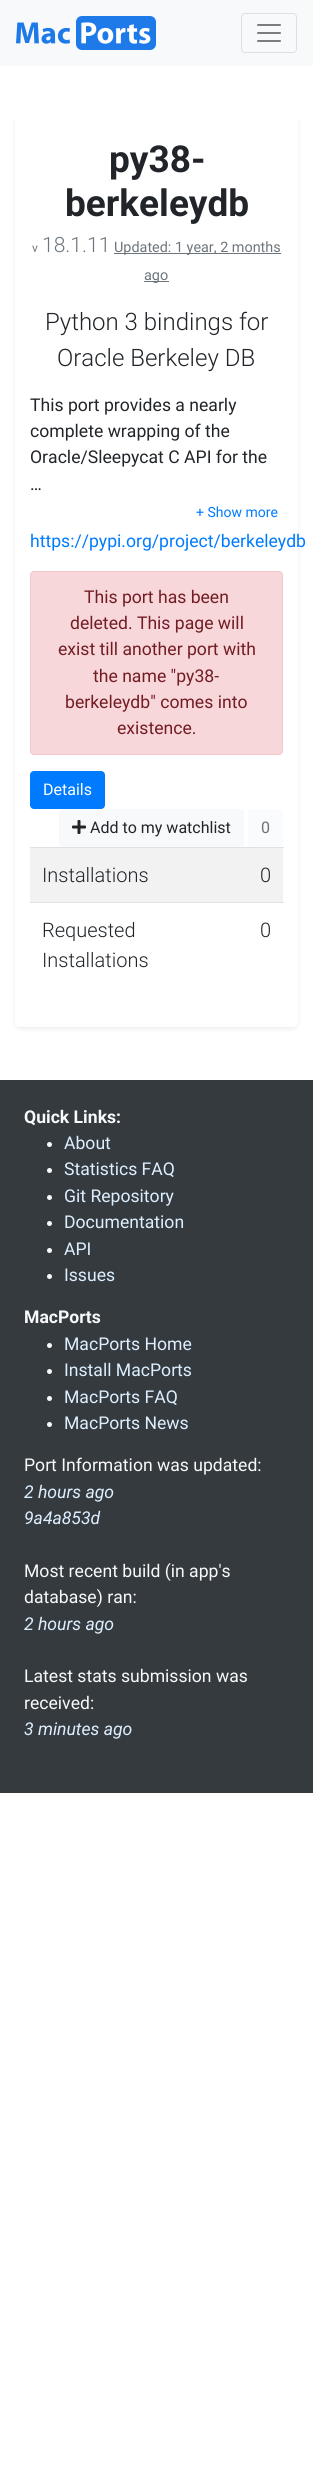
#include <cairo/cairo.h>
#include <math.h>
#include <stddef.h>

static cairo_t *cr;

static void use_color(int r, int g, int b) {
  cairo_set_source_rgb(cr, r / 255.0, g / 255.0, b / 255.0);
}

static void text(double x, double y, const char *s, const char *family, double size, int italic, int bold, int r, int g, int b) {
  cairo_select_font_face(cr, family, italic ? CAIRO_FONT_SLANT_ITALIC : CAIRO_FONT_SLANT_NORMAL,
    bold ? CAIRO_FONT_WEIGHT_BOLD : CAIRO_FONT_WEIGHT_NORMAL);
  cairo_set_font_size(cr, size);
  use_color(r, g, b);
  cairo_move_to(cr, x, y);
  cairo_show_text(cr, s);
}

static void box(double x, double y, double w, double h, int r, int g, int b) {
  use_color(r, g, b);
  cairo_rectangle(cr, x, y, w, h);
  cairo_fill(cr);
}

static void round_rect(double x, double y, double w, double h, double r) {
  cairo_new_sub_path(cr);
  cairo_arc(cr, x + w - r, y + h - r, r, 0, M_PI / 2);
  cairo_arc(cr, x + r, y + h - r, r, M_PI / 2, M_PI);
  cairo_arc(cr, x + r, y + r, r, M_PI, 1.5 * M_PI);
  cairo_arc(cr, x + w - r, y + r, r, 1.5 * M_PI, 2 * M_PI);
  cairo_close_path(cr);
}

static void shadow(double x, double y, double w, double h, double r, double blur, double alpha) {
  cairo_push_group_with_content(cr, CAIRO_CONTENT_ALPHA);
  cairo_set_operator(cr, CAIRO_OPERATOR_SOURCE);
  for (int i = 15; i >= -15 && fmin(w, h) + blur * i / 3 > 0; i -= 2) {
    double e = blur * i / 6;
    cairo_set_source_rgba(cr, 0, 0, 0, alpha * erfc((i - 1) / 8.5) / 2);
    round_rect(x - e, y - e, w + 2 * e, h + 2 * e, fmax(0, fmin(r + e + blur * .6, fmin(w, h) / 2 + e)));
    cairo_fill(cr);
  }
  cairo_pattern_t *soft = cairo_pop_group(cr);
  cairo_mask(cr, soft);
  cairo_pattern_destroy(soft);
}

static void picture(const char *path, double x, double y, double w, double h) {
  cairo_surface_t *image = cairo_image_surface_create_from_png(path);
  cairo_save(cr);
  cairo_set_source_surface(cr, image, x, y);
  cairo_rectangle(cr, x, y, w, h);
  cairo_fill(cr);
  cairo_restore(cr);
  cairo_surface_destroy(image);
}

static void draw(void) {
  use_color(255, 255, 255);
  cairo_paint(cr);
  box(0, 0, 313, 66, 248, 249, 250);
  picture("img_01.png", 16, 16, 140, 34);
  round_rect(241.5, 13.5, 55, 39, 3.5);
  use_color(223, 224, 225);
  cairo_set_line_width(cr, 1);
  cairo_stroke(cr);
  picture("img_02.png", 257, 24, 24, 18);
  cairo_save(cr);
  cairo_set_fill_rule(cr, CAIRO_FILL_RULE_EVEN_ODD);
  cairo_new_path(cr);
  cairo_move_to(cr, 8, 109);
  cairo_line_to(cr, 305, 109);
  cairo_line_to(cr, 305, 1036);
  cairo_line_to(cr, 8, 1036);
  cairo_close_path(cr);
  cairo_move_to(cr, 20, 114);
  cairo_line_to(cr, 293, 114);
  cairo_curve_to(cr, 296, 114, 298, 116, 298, 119);
  cairo_line_to(cr, 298, 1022);
  cairo_curve_to(cr, 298, 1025, 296, 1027, 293, 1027);
  cairo_line_to(cr, 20, 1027);
  cairo_curve_to(cr, 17, 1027, 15, 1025, 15, 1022);
  cairo_line_to(cr, 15, 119);
  cairo_curve_to(cr, 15, 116, 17, 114, 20, 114);
  cairo_close_path(cr);
  cairo_clip(cr);
  use_color(0, 0, 0);
  shadow(15, 116, 283, 913, 5, 2, 0.07);
  cairo_restore(cr);
  box(114, 253, 167, 1, 108, 117, 125);
  box(144, 281, 25, 1, 108, 117, 125);
  use_color(248, 215, 218);
  round_rect(30.5, 571.5, 252, 183, 3.5);
  cairo_fill_preserve(cr);
  use_color(245, 198, 203);
  cairo_stroke(cr);
  use_color(0, 123, 255);
  round_rect(30.5, 771.5, 74, 37, 3.5);
  cairo_fill_preserve(cr);
  cairo_stroke(cr);
  use_color(248, 249, 250);
  round_rect(59, 809, 185, 38, 4);
  cairo_fill(cr);
  picture("img_03.png", 72, 820, 14, 14);
  use_color(250, 251, 252);
  round_rect(248, 809, 35, 38, 4);
  cairo_fill(cr);
  box(30, 848, 253, 54, 242, 242, 242);
  box(30, 847, 254, 1, 222, 226, 230);
  box(30, 902, 254, 1, 222, 226, 230);
  box(0, 1080, 313, 713, 53, 58, 63);
  use_color(248, 249, 250);
  cairo_arc(cr, 49.5, 1144.5, 2.5, 0, 2 * M_PI);
  cairo_fill(cr);
  cairo_arc(cr, 49.5, 1170.5, 2.5, 0, 2 * M_PI);
  cairo_fill(cr);
  cairo_arc(cr, 49.5, 1197.5, 2.5, 0, 2 * M_PI);
  cairo_fill(cr);
  cairo_arc(cr, 49.5, 1223.5, 2.5, 0, 2 * M_PI);
  cairo_fill(cr);
  cairo_arc(cr, 49.5, 1250.5, 2.5, 0, 2 * M_PI);
  cairo_fill(cr);
  cairo_arc(cr, 49.5, 1276.5, 2.5, 0, 2 * M_PI);
  cairo_fill(cr);
  cairo_arc(cr, 49.5, 1345.5, 2.5, 0, 2 * M_PI);
  cairo_fill(cr);
  cairo_arc(cr, 49.5, 1371.5, 2.5, 0, 2 * M_PI);
  cairo_fill(cr);
  cairo_arc(cr, 49.5, 1398.5, 2.5, 0, 2 * M_PI);
  cairo_fill(cr);
  cairo_arc(cr, 49.5, 1424.5, 2.5, 0, 2 * M_PI);
  cairo_fill(cr);
  text(109, 172, "py38-", "Roboto", 37, 0, 1, 33, 37, 41);
  text(65, 216, "berkeleydb", "Roboto", 37, 0, 1, 33, 37, 41);
  text(32, 252, "v", "Roboto", 12, 0, 0, 108, 117, 125);
  text(42, 252, "18.1.11", "Roboto Light", 21, 0, 0, 108, 117, 125);
  text(114, 252, "Updated: 1 year, 2 months", "Roboto", 14.4, 0, 0, 108, 117, 125);
  text(144, 280, "ago", "Roboto", 14.4, 0, 0, 108, 117, 125);
  text(45, 330, "Python 3 bindings for", "Roboto Light", 24, 0, 0, 33, 37, 41);
  text(57, 366, "Oracle Berkeley DB", "Roboto Light", 24, 0, 0, 33, 37, 41);
  text(30, 411, "This port provides a nearly", "Roboto", 17.6, 0, 0, 33, 37, 41);
  text(30, 437, "complete wrapping of the", "Roboto", 17.6, 0, 0, 33, 37, 41);
  text(30, 463, "Oracle/Sleepycat C API for the", "Roboto", 17.6, 0, 0, 33, 37, 41);
  text(30, 490, "…", "Roboto", 17.6, 0, 0, 33, 37, 41);
  text(196, 517, "+ Show more", "Roboto", 14, 0, 0, 0, 123, 255);
  text(30, 547, "https://pypi.org/project/berkeleydb", "Roboto", 17.6, 0, 0, 0, 123, 255);
  text(84, 603, "This port has been", "Roboto", 17.6, 0, 0, 114, 28, 36);
  text(70, 629, "deleted. This page will", "Roboto", 17.6, 0, 0, 114, 28, 36);
  text(58, 655, "exist till another port with", "Roboto", 17.6, 0, 0, 114, 28, 36);
  text(93, 682, "the name \"py38-", "Roboto", 17.6, 0, 0, 114, 28, 36);
  text(65, 708, "berkeleydb\" comes into", "Roboto", 17.6, 0, 0, 114, 28, 36);
  text(117, 734, "existence.", "Roboto", 17.6, 0, 0, 114, 28, 36);
  text(43, 795, "Details", "Roboto", 16, 0, 0, 255, 255, 255);
  text(90, 833, "Add to my watchlist", "Roboto", 16, 0, 0, 33, 37, 41);
  text(261, 833, "0", "Roboto", 16, 0, 0, 111, 113, 116);
  text(42, 882, "Installations", "Roboto Light", 20, 0, 0, 33, 37, 41);
  text(260, 882, "0", "Roboto Light", 20, 0, 0, 33, 37, 41);
  text(42, 937, "Requested", "Roboto Light", 20, 0, 0, 33, 37, 41);
  text(42, 967, "Installations", "Roboto Light", 20, 0, 0, 33, 37, 41);
  text(260, 937, "0", "Roboto Light", 20, 0, 0, 33, 37, 41);
  text(24, 1123, "Quick Links:", "Roboto", 17.6, 0, 1, 248, 249, 250);
  text(64, 1149, "About", "Roboto", 17.6, 0, 0, 221, 239, 255);
  text(64, 1175, "Statistics FAQ", "Roboto", 17.6, 0, 0, 221, 239, 255);
  text(64, 1202, "Git Repository", "Roboto", 17.6, 0, 0, 221, 239, 255);
  text(64, 1228, "Documentation", "Roboto", 17.6, 0, 0, 221, 239, 255);
  text(64, 1255, "API", "Roboto", 17.6, 0, 0, 221, 239, 255);
  text(64, 1281, "Issues", "Roboto", 17.6, 0, 0, 221, 239, 255);
  text(24, 1323, "MacPorts", "Roboto", 17.6, 0, 1, 248, 249, 250);
  text(64, 1350, "MacPorts Home", "Roboto", 17.6, 0, 0, 221, 239, 255);
  text(64, 1376, "Install MacPorts", "Roboto", 17.6, 0, 0, 221, 239, 255);
  text(64, 1403, "MacPorts FAQ", "Roboto", 17.6, 0, 0, 221, 239, 255);
  text(64, 1429, "MacPorts News", "Roboto", 17.6, 0, 0, 221, 239, 255);
  text(24, 1471, "Port Information was updated:", "Roboto", 17.6, 0, 0, 248, 249, 250);
  text(24, 1498, "2 hours ago", "Roboto", 17.6, 1, 0, 221, 239, 255);
  text(24, 1524, "9a4a853d", "Roboto", 17.6, 1, 0, 221, 239, 255);
  text(24, 1577, "Most recent build (in app's", "Roboto", 17.6, 0, 0, 248, 249, 250);
  text(24, 1603, "database) ran:", "Roboto", 17.6, 0, 0, 248, 249, 250);
  text(24, 1630, "2 hours ago", "Roboto", 17.6, 1, 0, 221, 239, 255);
  text(24, 1682, "Latest stats submission was", "Roboto", 17.6, 0, 0, 248, 249, 250);
  text(24, 1709, "received:", "Roboto", 17.6, 0, 0, 248, 249, 250);
  text(24, 1735, "3 minutes ago", "Roboto", 17.6, 1, 0, 221, 239, 255);
}

int main(void) {
  cairo_surface_t *surface = cairo_image_surface_create(CAIRO_FORMAT_RGB24, 313, 2470);
  cr = cairo_create(surface);
  cairo_font_options_t *options = cairo_font_options_create();
  cairo_font_options_set_hint_metrics(options, CAIRO_HINT_METRICS_OFF);
  cairo_font_options_set_hint_style(options, CAIRO_HINT_STYLE_NONE);
  cairo_set_font_options(cr, options);
  cairo_set_miter_limit(cr, 4);
  draw();
  cairo_surface_write_to_png(surface, "out.png");
  cairo_font_options_destroy(options);
  cairo_destroy(cr);
  cairo_surface_destroy(surface);
  return 0;
}
